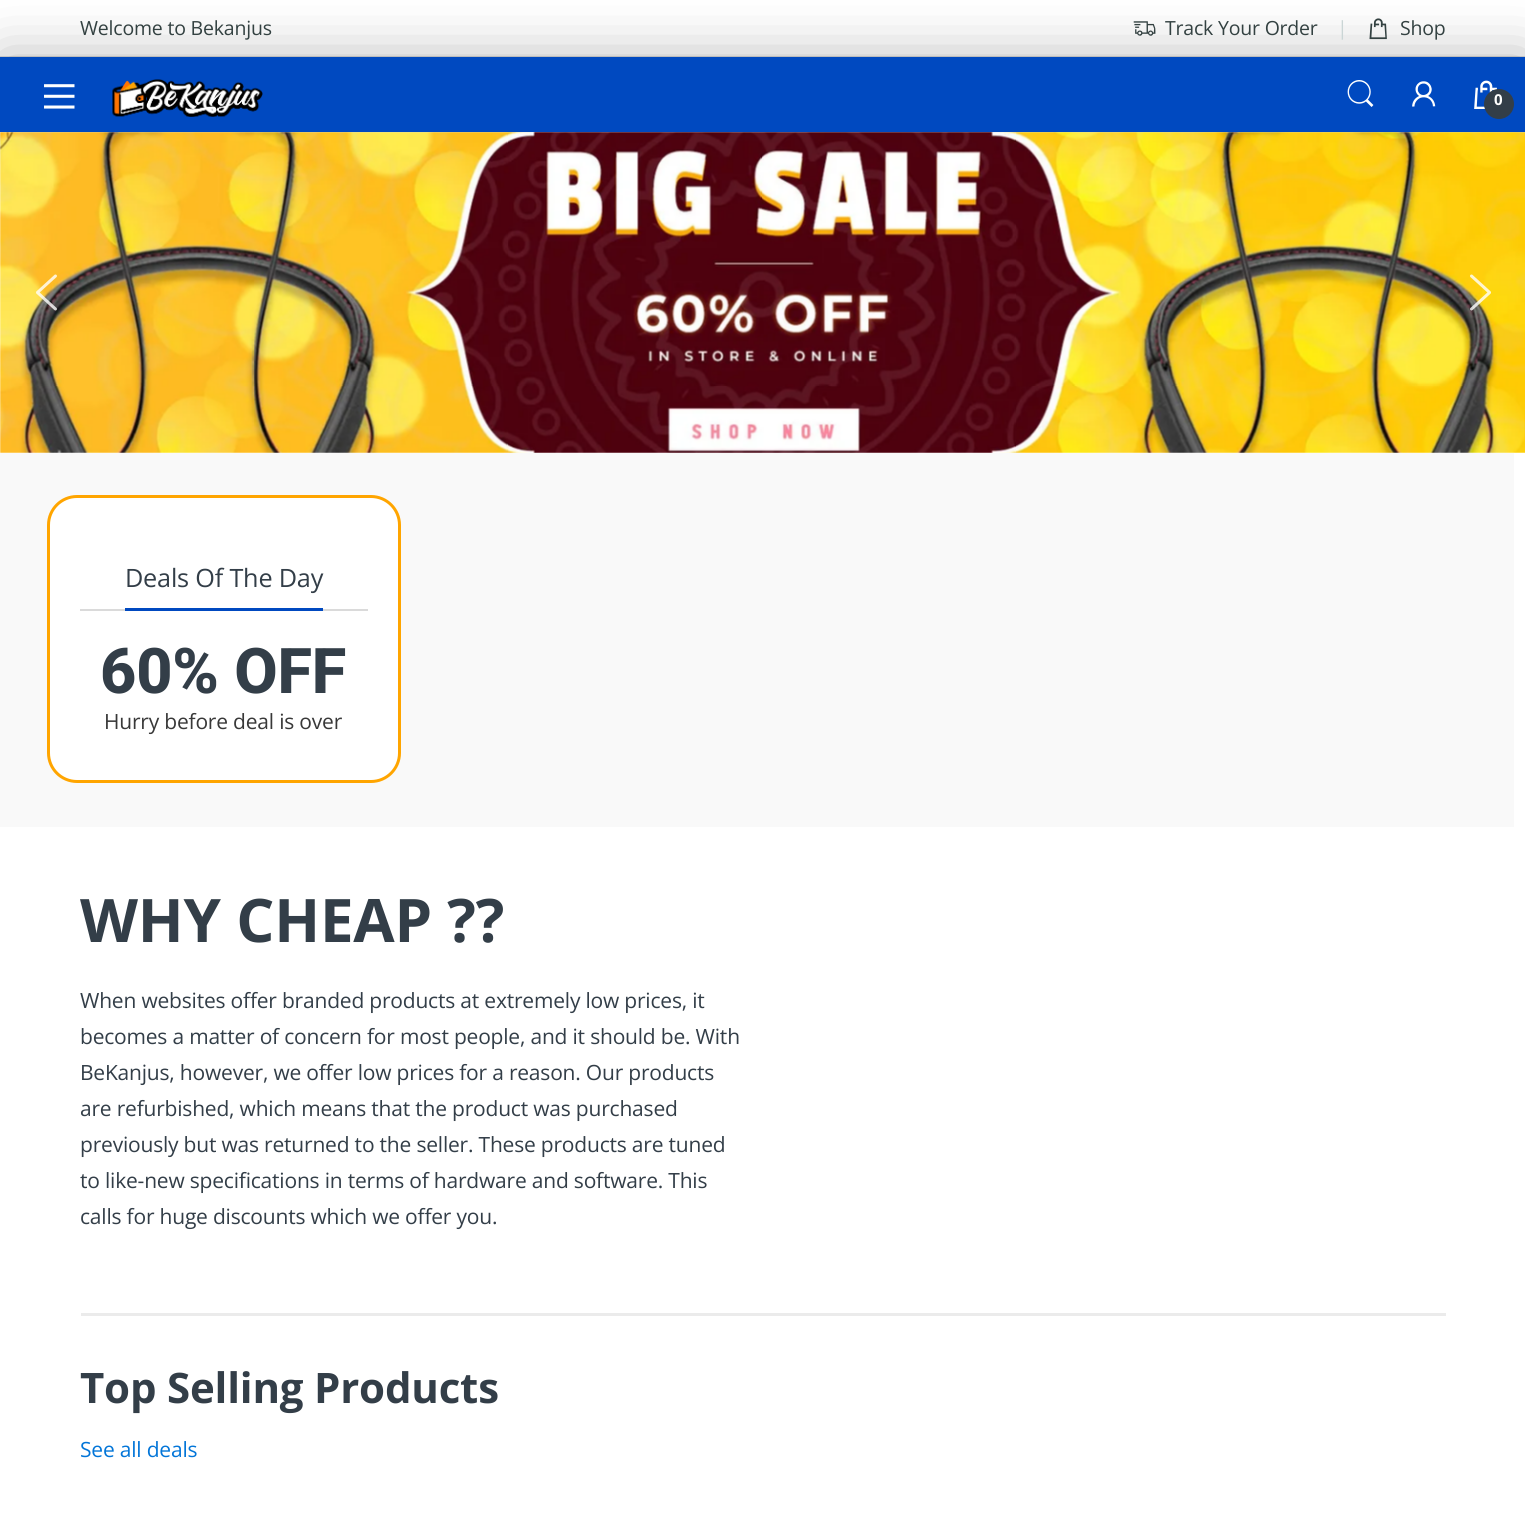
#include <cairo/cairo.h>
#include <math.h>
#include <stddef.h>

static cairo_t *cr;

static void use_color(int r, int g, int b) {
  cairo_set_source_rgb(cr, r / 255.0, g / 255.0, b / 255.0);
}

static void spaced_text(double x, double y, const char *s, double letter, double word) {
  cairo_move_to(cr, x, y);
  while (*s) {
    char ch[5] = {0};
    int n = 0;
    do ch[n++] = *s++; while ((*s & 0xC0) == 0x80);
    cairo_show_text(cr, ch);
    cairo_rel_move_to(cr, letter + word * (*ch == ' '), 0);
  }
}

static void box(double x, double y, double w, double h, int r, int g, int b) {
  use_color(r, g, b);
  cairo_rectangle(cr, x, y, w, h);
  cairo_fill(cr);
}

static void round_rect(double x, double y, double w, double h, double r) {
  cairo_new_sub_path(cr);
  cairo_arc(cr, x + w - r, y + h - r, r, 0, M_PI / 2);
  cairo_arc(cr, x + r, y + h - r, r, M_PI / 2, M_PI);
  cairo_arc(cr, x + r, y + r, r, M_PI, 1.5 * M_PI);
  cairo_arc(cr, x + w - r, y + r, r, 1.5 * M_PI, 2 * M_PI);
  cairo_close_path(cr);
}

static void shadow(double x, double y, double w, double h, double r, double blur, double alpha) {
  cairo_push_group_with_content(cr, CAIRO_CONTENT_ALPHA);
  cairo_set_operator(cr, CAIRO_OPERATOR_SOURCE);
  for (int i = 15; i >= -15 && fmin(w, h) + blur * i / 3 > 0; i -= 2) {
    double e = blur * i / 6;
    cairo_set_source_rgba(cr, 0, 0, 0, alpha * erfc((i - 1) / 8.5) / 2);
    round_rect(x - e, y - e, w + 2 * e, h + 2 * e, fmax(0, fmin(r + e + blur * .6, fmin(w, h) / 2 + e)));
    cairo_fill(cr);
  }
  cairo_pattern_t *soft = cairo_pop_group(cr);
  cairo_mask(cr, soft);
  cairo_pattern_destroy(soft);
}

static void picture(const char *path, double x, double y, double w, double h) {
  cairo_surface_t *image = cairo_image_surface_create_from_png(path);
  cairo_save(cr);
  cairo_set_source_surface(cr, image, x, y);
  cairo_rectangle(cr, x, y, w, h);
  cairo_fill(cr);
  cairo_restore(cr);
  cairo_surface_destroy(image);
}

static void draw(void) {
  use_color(255, 255, 255);
  cairo_paint(cr);
  box(0, 56, 1525, 1, 221, 221, 221);
  use_color(0, 0, 0);
  shadow(2, 59, 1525, 75, 0, 29, 0.3);
  picture("img_01.png", 1133, 21, 23, 15);
  picture("img_02.png", 1369, 18, 18, 22);
  box(0, 57, 1525, 75, 0, 73, 192);
  picture("img_03.png", 44, 84, 31, 25);
  picture("img_04.png", 112, 79, 151, 38);
  picture("img_05.png", 1347, 80, 27, 27);
  picture("img_06.png", 1412, 81, 24, 26);
  picture("img_07.png", 1474, 80, 23, 29);
  use_color(51, 62, 72);
  cairo_arc(cr, 1499, 104, 15, 0, 2 * M_PI);
  cairo_fill(cr);
  picture("img_08.png", 0, 132, 1525, 321);
  picture("img_09.png", 36, 274, 21, 37);
  picture("img_10.png", 1470, 274, 21, 37);
  box(0, 453, 1514, 374, 249, 249, 249);
  use_color(255, 255, 255);
  round_rect(48.5, 496.5, 351, 285, 28.5);
  cairo_fill_preserve(cr);
  use_color(255, 165, 0);
  cairo_set_line_width(cr, 3);
  cairo_stroke(cr);
  box(80, 609, 288, 2, 218, 218, 218);
  box(125, 608, 198, 3, 0, 73, 192);
  box(81, 1313, 1365, 3, 235, 235, 235);
  cairo_select_font_face(cr, "Open Sans", CAIRO_FONT_SLANT_NORMAL, CAIRO_FONT_WEIGHT_NORMAL);
  cairo_set_font_size(cr, 19.5);
  use_color(51, 65, 65);
  spaced_text(80, 35, "Welcome to Bekanjus", -0.2, 0);
  spaced_text(1165, 35, "Track Your Order", -0.2, 0);
  use_color(202, 213, 213);
  spaced_text(1337, 35, "|", -0.2, 0);
  use_color(51, 65, 65);
  spaced_text(1400, 35, "Shop", -0.2, 0);
  cairo_select_font_face(cr, "Open Sans", CAIRO_FONT_SLANT_NORMAL, CAIRO_FONT_WEIGHT_BOLD);
  cairo_set_font_size(cr, 15);
  use_color(255, 255, 255);
  spaced_text(1494, 105, "0", -0.2, 0);
  cairo_select_font_face(cr, "Open Sans", CAIRO_FONT_SLANT_NORMAL, CAIRO_FONT_WEIGHT_NORMAL);
  cairo_set_font_size(cr, 25.25);
  use_color(51, 62, 72);
  spaced_text(125, 587, "Deals Of The Day", -0.2, 0);
  cairo_select_font_face(cr, "Roboto ExtraBold", CAIRO_FONT_SLANT_NORMAL, CAIRO_FONT_WEIGHT_NORMAL);
  cairo_set_font_size(cr, 63);
  spaced_text(100, 693, "60% OFF", -0.2, 0);
  cairo_select_font_face(cr, "Open Sans", CAIRO_FONT_SLANT_NORMAL, CAIRO_FONT_WEIGHT_NORMAL);
  cairo_set_font_size(cr, 21);
  use_color(56, 56, 56);
  spaced_text(104, 729, "Hurry before deal is over", -0.2, 0);
  cairo_select_font_face(cr, "Open Sans", CAIRO_FONT_SLANT_NORMAL, CAIRO_FONT_WEIGHT_BOLD);
  cairo_set_font_size(cr, 60);
  use_color(51, 62, 72);
  spaced_text(80, 942, "WHY CHEAP ?\077", -0.2, 0);
  cairo_select_font_face(cr, "Open Sans", CAIRO_FONT_SLANT_NORMAL, CAIRO_FONT_WEIGHT_NORMAL);
  cairo_set_font_size(cr, 21);
  spaced_text(80, 1008, "When websites offer branded products at extremely low prices, it", -0.2, 0);
  spaced_text(80, 1044, "becomes a matter of concern for most people, and it should be. With", -0.2, 0);
  spaced_text(80, 1080, "BeKanjus, however, we offer low prices for a reason. Our products", -0.2, 0);
  spaced_text(80, 1116, "are refurbished, which means that the product was purchased", -0.2, 0);
  spaced_text(80, 1152, "previously but was returned to the seller. These products are tuned", -0.2, 0);
  spaced_text(80, 1188, "to like-new specifications in terms of hardware and software. This", -0.2, 0);
  spaced_text(80, 1224, "calls for huge discounts which we offer you.", -0.2, 0);
  cairo_select_font_face(cr, "Open Sans", CAIRO_FONT_SLANT_NORMAL, CAIRO_FONT_WEIGHT_BOLD);
  cairo_set_font_size(cr, 42);
  spaced_text(80, 1403, "Top Selling Products", -0.2, 0);
  cairo_select_font_face(cr, "Open Sans", CAIRO_FONT_SLANT_NORMAL, CAIRO_FONT_WEIGHT_NORMAL);
  cairo_set_font_size(cr, 21);
  use_color(2, 117, 216);
  spaced_text(80, 1457, "See all deals", -0.2, 0);
}

int main(void) {
  cairo_surface_t *surface = cairo_image_surface_create(CAIRO_FORMAT_RGB24, 1525, 1515);
  cr = cairo_create(surface);
  cairo_font_options_t *options = cairo_font_options_create();
  cairo_font_options_set_hint_metrics(options, CAIRO_HINT_METRICS_OFF);
  cairo_font_options_set_hint_style(options, CAIRO_HINT_STYLE_NONE);
  cairo_set_font_options(cr, options);
  cairo_set_miter_limit(cr, 4);
  draw();
  cairo_surface_write_to_png(surface, "out.png");
  cairo_font_options_destroy(options);
  cairo_destroy(cr);
  cairo_surface_destroy(surface);
  return 0;
}
